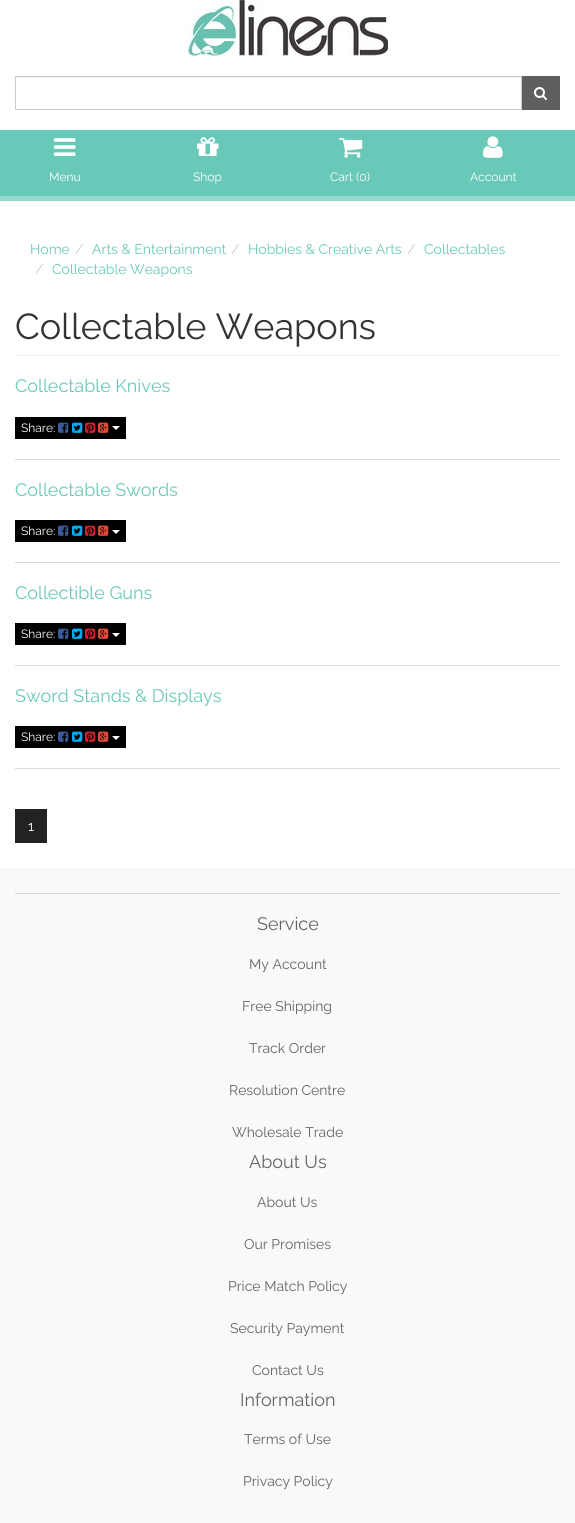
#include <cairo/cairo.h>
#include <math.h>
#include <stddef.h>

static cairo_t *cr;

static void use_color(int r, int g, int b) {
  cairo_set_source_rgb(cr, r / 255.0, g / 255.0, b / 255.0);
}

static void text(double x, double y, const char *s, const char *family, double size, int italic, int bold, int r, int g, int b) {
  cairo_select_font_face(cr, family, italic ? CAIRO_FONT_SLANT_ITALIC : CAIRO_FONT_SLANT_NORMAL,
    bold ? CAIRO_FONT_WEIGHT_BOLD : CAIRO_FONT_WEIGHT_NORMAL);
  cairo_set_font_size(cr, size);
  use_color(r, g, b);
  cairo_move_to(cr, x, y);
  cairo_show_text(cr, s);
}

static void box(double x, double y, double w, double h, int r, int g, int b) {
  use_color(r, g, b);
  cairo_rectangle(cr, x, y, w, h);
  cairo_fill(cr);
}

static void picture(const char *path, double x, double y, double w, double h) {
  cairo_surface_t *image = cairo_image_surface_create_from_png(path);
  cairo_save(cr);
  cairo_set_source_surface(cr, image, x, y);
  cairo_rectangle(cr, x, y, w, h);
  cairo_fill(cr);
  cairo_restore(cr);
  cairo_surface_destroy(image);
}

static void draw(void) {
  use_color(249, 249, 249);
  cairo_paint(cr);
  box(0, 0, 575, 130, 255, 255, 255);
  picture("img_01.png", 188, 0, 200, 56);
  box(16, 77, 505, 1, 236, 236, 236);
  cairo_rectangle(cr, 15.5, 76.5, 506, 33);
  use_color(204, 204, 204);
  cairo_set_line_width(cr, 1);
  cairo_stroke(cr);
  box(522, 76, 38, 34, 96, 95, 95);
  picture("img_02.png", 534, 87, 13, 13);
  box(0, 130, 575, 66, 105, 201, 185);
  box(0, 196, 575, 5, 150, 217, 206);
  picture("img_03.png", 54, 138, 22, 18);
  picture("img_04.png", 197, 137, 22, 19);
  picture("img_05.png", 339, 138, 24, 20);
  picture("img_06.png", 483, 136, 20, 22);
  box(0, 201, 575, 667, 255, 255, 255);
  box(15, 355, 545, 1, 238, 238, 238);
  box(15, 417, 111, 22, 0, 0, 0);
  picture("img_07.png", 58, 422, 11, 11);
  picture("img_08.png", 72, 422, 11, 11);
  picture("img_09.png", 85, 422, 11, 11);
  picture("img_10.png", 98, 422, 11, 11);
  use_color(255, 255, 255);
  cairo_new_path(cr);
  cairo_move_to(cr, 112, 426);
  cairo_line_to(cr, 120, 426);
  cairo_line_to(cr, 116, 430);
  cairo_close_path(cr);
  cairo_fill(cr);
  box(15, 459, 545, 1, 217, 217, 217);
  box(15, 520, 111, 22, 0, 0, 0);
  picture("img_07.png", 58, 525, 11, 11);
  picture("img_08.png", 72, 525, 11, 11);
  picture("img_09.png", 85, 525, 11, 11);
  picture("img_10.png", 98, 525, 11, 11);
  use_color(255, 255, 255);
  cairo_new_path(cr);
  cairo_move_to(cr, 112, 530);
  cairo_line_to(cr, 120, 530);
  cairo_line_to(cr, 116, 534);
  cairo_close_path(cr);
  cairo_fill(cr);
  box(15, 562, 545, 1, 217, 217, 217);
  box(15, 623, 111, 22, 0, 0, 0);
  picture("img_07.png", 58, 628, 11, 11);
  picture("img_08.png", 72, 628, 11, 11);
  picture("img_09.png", 85, 628, 11, 11);
  picture("img_10.png", 98, 628, 11, 11);
  use_color(255, 255, 255);
  cairo_new_path(cr);
  cairo_move_to(cr, 112, 633);
  cairo_line_to(cr, 120, 633);
  cairo_line_to(cr, 116, 637);
  cairo_close_path(cr);
  cairo_fill(cr);
  box(15, 665, 545, 1, 217, 217, 217);
  box(15, 726, 111, 22, 0, 0, 0);
  picture("img_07.png", 58, 731, 11, 11);
  picture("img_08.png", 72, 731, 11, 11);
  picture("img_09.png", 85, 731, 11, 11);
  picture("img_10.png", 98, 731, 11, 11);
  use_color(255, 255, 255);
  cairo_new_path(cr);
  cairo_move_to(cr, 112, 736);
  cairo_line_to(cr, 120, 736);
  cairo_line_to(cr, 116, 740);
  cairo_close_path(cr);
  cairo_fill(cr);
  box(15, 768, 545, 1, 217, 217, 217);
  box(15, 809, 32, 34, 34, 34, 34);
  box(15, 893, 545, 1, 212, 212, 212);
  text(49, 181, "Menu", "Raleway", 12, 0, 0, 255, 255, 255);
  text(193, 181, "Shop", "Raleway", 12, 0, 0, 255, 255, 255);
  text(330, 181, "Cart (0)", "Raleway", 12, 0, 0, 255, 255, 255);
  text(470, 181, "Account", "Raleway", 12, 0, 0, 255, 255, 255);
  text(30, 254, "Home", "Raleway", 14, 0, 0, 105, 201, 185);
  text(75, 254, "/", "Raleway", 14, 0, 0, 204, 204, 204);
  text(92, 254, "Arts & Entertainment", "Raleway", 14, 0, 0, 105, 201, 185);
  text(231, 254, "/", "Raleway", 14, 0, 0, 204, 204, 204);
  text(248, 254, "Hobbies & Creative Arts", "Raleway", 14, 0, 0, 105, 201, 185);
  text(407, 254, "/", "Raleway", 14, 0, 0, 204, 204, 204);
  text(424, 254, "Collectables", "Raleway", 14, 0, 0, 105, 201, 185);
  text(35, 274, "/", "Raleway", 14, 0, 0, 204, 204, 204);
  text(52, 274, "Collectable Weapons", "Raleway", 14, 0, 0, 105, 201, 185);
  text(15, 339, "Collectable Weapons", "Raleway", 36, 0, 0, 51, 51, 51);
  text(15, 392, "Collectable Knives", "Raleway", 18, 0, 0, 105, 201, 185);
  text(21, 432, "Share:", "Raleway", 12, 0, 0, 255, 255, 255);
  text(15, 496, "Collectable Swords", "Raleway", 18, 0, 0, 105, 201, 185);
  text(21, 535, "Share:", "Raleway", 12, 0, 0, 255, 255, 255);
  text(15, 599, "Collectible Guns", "Raleway", 18, 0, 0, 105, 201, 185);
  text(21, 638, "Share:", "Raleway", 12, 0, 0, 255, 255, 255);
  text(15, 702, "Sword Stands & Displays", "Raleway", 18, 0, 0, 105, 201, 185);
  text(21, 741, "Share:", "Raleway", 12, 0, 0, 255, 255, 255);
  text(28, 831, "1", "Raleway", 14, 0, 0, 255, 255, 255);
  text(257, 930, "Service", "Raleway", 18, 0, 0, 99, 100, 103);
  text(249, 969, "My Account", "Raleway", 14, 0, 0, 99, 100, 103);
  text(242, 1011, "Free Shipping", "Raleway", 14, 0, 0, 99, 100, 103);
  text(249, 1053, "Track Order", "Raleway", 14, 0, 0, 99, 100, 103);
  text(229, 1095, "Resolution Centre", "Raleway", 14, 0, 0, 99, 100, 103);
  text(232, 1137, "Wholesale Trade", "Raleway", 14, 0, 0, 99, 100, 103);
  text(249, 1168, "About Us", "Raleway", 18, 0, 0, 99, 100, 103);
  text(257, 1207, "About Us", "Raleway", 14, 0, 0, 99, 100, 103);
  text(244, 1249, "Our Promises", "Raleway", 14, 0, 0, 99, 100, 103);
  text(228, 1291, "Price Match Policy", "Raleway", 14, 0, 0, 99, 100, 103);
  text(230, 1333, "Security Payment", "Raleway", 14, 0, 0, 99, 100, 103);
  text(252, 1375, "Contact Us", "Raleway", 14, 0, 0, 99, 100, 103);
  text(240, 1406, "Information", "Raleway", 18, 0, 0, 99, 100, 103);
  text(244, 1444, "Terms of Use", "Raleway", 14, 0, 0, 99, 100, 103);
  text(243, 1486, "Privacy Policy", "Raleway", 14, 0, 0, 99, 100, 103);
}

int main(void) {
  cairo_surface_t *surface = cairo_image_surface_create(CAIRO_FORMAT_RGB24, 575, 1523);
  cr = cairo_create(surface);
  cairo_font_options_t *options = cairo_font_options_create();
  cairo_font_options_set_hint_metrics(options, CAIRO_HINT_METRICS_OFF);
  cairo_font_options_set_hint_style(options, CAIRO_HINT_STYLE_NONE);
  cairo_set_font_options(cr, options);
  cairo_set_miter_limit(cr, 4);
  draw();
  cairo_surface_write_to_png(surface, "out.png");
  cairo_font_options_destroy(options);
  cairo_destroy(cr);
  cairo_surface_destroy(surface);
  return 0;
}
